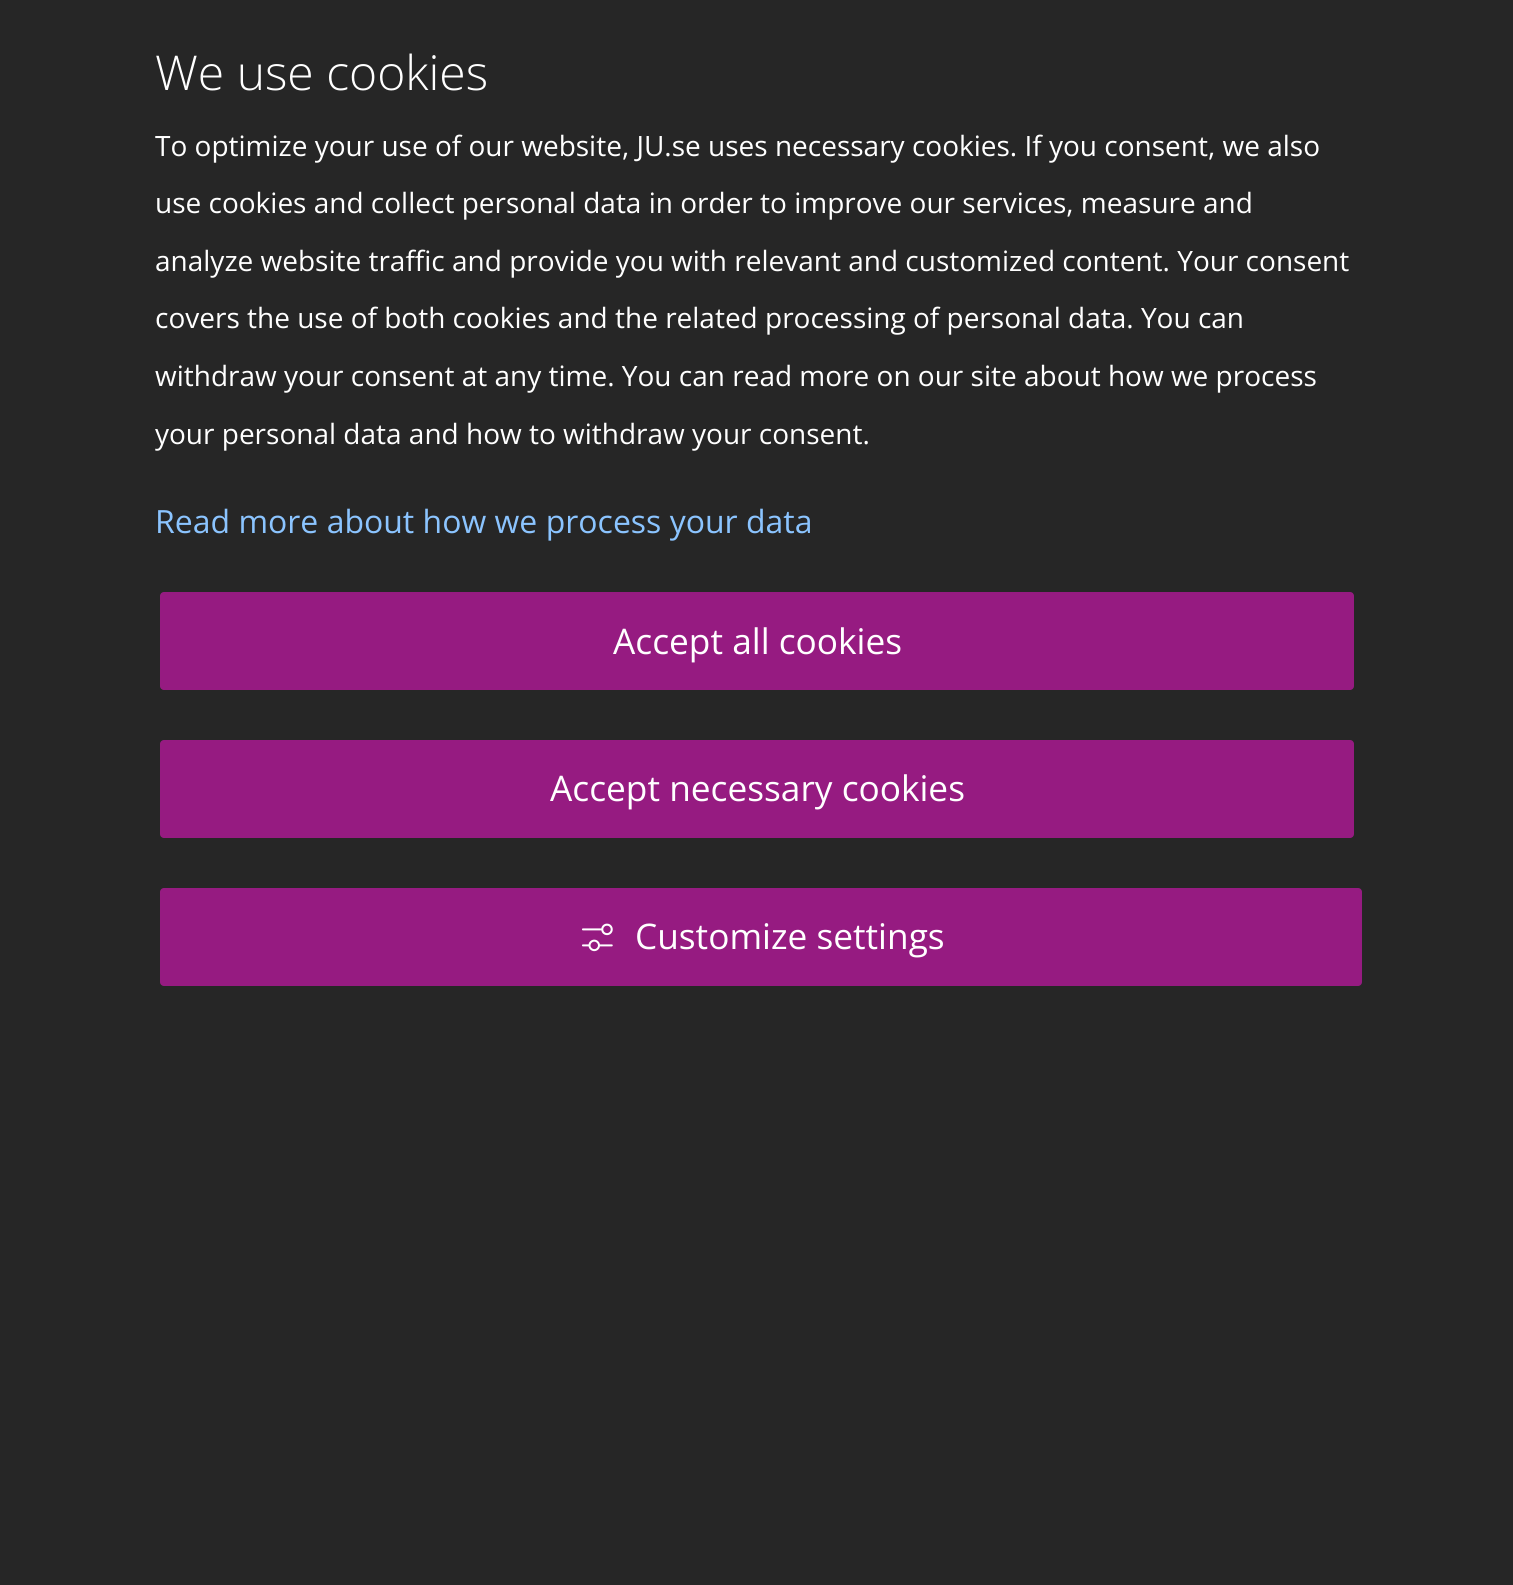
#include <cairo/cairo.h>
#include <math.h>
#include <stddef.h>

static cairo_t *cr;

static void use_color(int r, int g, int b) {
  cairo_set_source_rgb(cr, r / 255.0, g / 255.0, b / 255.0);
}

static void text(double x, double y, const char *s, const char *family, double size, int italic, int bold, int r, int g, int b) {
  cairo_select_font_face(cr, family, italic ? CAIRO_FONT_SLANT_ITALIC : CAIRO_FONT_SLANT_NORMAL,
    bold ? CAIRO_FONT_WEIGHT_BOLD : CAIRO_FONT_WEIGHT_NORMAL);
  cairo_set_font_size(cr, size);
  use_color(r, g, b);
  cairo_move_to(cr, x, y);
  cairo_show_text(cr, s);
}

static void round_rect(double x, double y, double w, double h, double r) {
  cairo_new_sub_path(cr);
  cairo_arc(cr, x + w - r, y + h - r, r, 0, M_PI / 2);
  cairo_arc(cr, x + r, y + h - r, r, M_PI / 2, M_PI);
  cairo_arc(cr, x + r, y + r, r, M_PI, 1.5 * M_PI);
  cairo_arc(cr, x + w - r, y + r, r, 1.5 * M_PI, 2 * M_PI);
  cairo_close_path(cr);
}

static void picture(const char *path, double x, double y, double w, double h) {
  cairo_surface_t *image = cairo_image_surface_create_from_png(path);
  cairo_save(cr);
  cairo_set_source_surface(cr, image, x, y);
  cairo_rectangle(cr, x, y, w, h);
  cairo_fill(cr);
  cairo_restore(cr);
  cairo_surface_destroy(image);
}

static void draw(void) {
  use_color(38, 38, 38);
  cairo_paint(cr);
  use_color(150, 27, 129);
  round_rect(160, 592, 1194, 98, 4);
  cairo_fill(cr);
  round_rect(160, 740, 1194, 98, 4);
  cairo_fill(cr);
  round_rect(160, 888, 1202, 98, 4);
  cairo_fill(cr);
  picture("img_01.png", 582, 923, 31, 29);
  text(155, 90, "We use cookies", "Open Sans Light", 48, 0, 0, 255, 255, 255);
  text(155, 156, "To optimize your use of our website, JU.se uses necessary cookies. If you consent, we also", "Open Sans", 28, 0, 0, 255, 255, 255);
  text(155, 213, "use cookies and collect personal data in order to improve our services, measure and", "Open Sans", 28, 0, 0, 255, 255, 255);
  text(155, 271, "analyze website traffic and provide you with relevant and customized content. Your consent", "Open Sans", 28, 0, 0, 255, 255, 255);
  text(155, 328, "covers the use of both cookies and the related processing of personal data. You can", "Open Sans", 28, 0, 0, 255, 255, 255);
  text(155, 386, "withdraw your consent at any time. You can read more on our site about how we process", "Open Sans", 28, 0, 0, 255, 255, 255);
  text(155, 444, "your personal data and how to withdraw your consent.", "Open Sans", 28, 0, 0, 255, 255, 255);
  text(155, 533, "Read more about how we process your data", "Open Sans", 32, 0, 0, 139, 196, 255);
  text(613, 654, "Accept all cookies", "Open Sans", 35.25, 0, 0, 255, 255, 255);
  text(550, 801, "Accept necessary cookies", "Open Sans", 35.25, 0, 0, 255, 255, 255);
  text(635, 949, "Customize settings", "Open Sans", 35.25, 0, 0, 255, 255, 255);
}

int main(void) {
  cairo_surface_t *surface = cairo_image_surface_create(CAIRO_FORMAT_RGB24, 1513, 1585);
  cr = cairo_create(surface);
  cairo_font_options_t *options = cairo_font_options_create();
  cairo_font_options_set_hint_metrics(options, CAIRO_HINT_METRICS_OFF);
  cairo_font_options_set_hint_style(options, CAIRO_HINT_STYLE_NONE);
  cairo_set_font_options(cr, options);
  cairo_set_miter_limit(cr, 4);
  draw();
  cairo_surface_write_to_png(surface, "out.png");
  cairo_font_options_destroy(options);
  cairo_destroy(cr);
  cairo_surface_destroy(surface);
  return 0;
}
